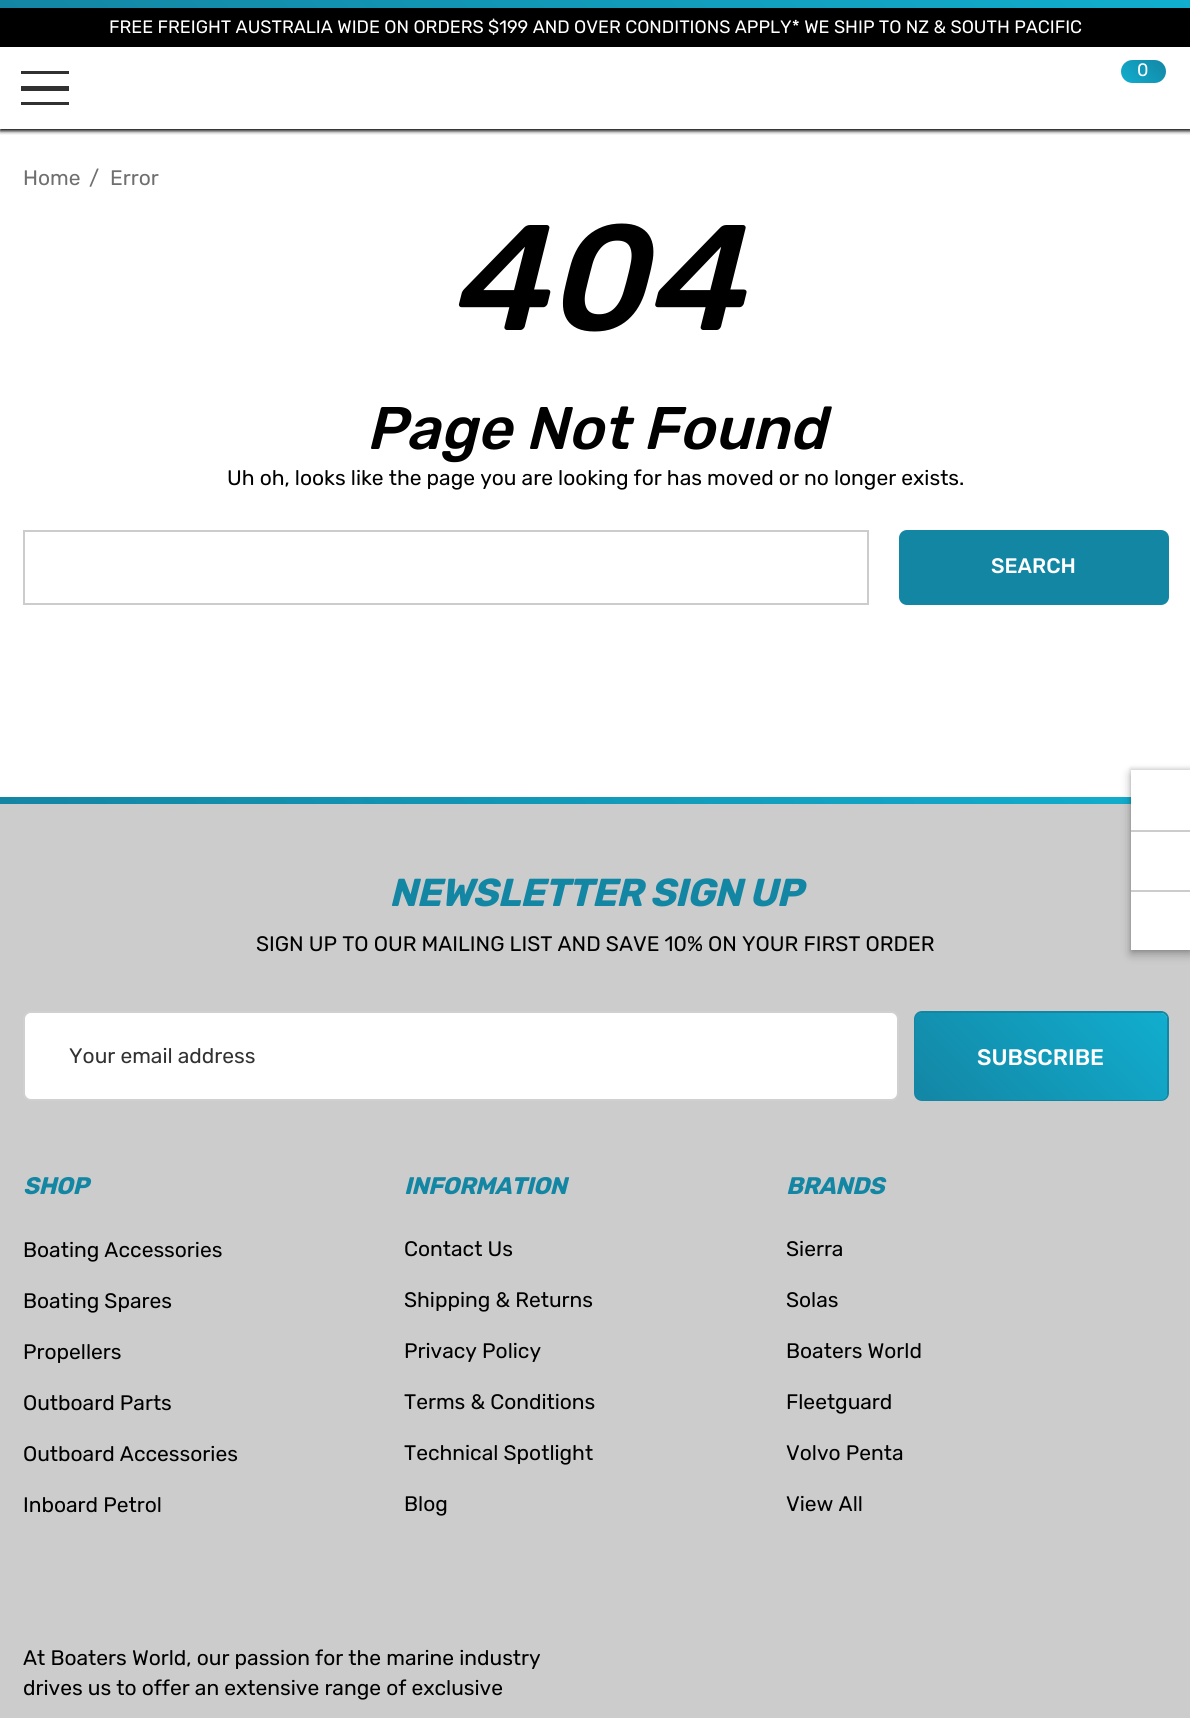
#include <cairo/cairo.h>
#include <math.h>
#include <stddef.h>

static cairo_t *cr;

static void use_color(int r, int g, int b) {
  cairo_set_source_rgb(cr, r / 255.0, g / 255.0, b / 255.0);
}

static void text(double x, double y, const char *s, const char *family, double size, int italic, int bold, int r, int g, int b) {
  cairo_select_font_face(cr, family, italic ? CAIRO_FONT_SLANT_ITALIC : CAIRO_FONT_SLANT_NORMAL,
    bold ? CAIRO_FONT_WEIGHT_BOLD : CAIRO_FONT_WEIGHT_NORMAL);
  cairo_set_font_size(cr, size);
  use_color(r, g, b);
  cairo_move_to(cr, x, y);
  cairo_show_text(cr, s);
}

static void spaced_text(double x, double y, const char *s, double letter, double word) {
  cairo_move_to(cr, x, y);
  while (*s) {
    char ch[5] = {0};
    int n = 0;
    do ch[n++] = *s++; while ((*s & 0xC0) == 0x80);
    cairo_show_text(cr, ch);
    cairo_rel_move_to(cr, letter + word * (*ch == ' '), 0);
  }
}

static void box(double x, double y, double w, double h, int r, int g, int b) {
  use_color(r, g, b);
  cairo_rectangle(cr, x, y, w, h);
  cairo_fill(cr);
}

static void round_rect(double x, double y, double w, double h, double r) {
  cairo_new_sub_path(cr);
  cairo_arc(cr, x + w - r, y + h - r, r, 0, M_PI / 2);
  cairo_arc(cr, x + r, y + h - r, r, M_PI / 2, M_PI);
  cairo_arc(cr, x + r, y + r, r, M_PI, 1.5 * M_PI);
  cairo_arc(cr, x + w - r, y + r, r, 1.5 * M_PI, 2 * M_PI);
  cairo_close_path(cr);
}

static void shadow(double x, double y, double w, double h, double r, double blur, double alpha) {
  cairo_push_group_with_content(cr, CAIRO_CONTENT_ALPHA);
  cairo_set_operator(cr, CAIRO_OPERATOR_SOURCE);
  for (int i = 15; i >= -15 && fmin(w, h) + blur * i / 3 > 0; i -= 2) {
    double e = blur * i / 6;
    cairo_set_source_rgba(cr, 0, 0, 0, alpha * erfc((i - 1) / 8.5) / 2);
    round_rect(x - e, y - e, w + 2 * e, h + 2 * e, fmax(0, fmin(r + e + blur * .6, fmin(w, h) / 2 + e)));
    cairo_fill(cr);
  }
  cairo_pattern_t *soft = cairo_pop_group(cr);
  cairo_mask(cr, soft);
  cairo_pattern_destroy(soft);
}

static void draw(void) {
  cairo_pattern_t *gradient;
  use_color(255, 255, 255);
  cairo_paint(cr);
  cairo_save(cr);
  cairo_rectangle(cr, 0, 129, 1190, 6);
  cairo_clip(cr);
  use_color(0, 0, 0);
  shadow(0, 2, 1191, 129, 0, 2, 1);
  cairo_restore(cr);
  gradient = cairo_pattern_create_linear(296, 303, 895, -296);
  cairo_pattern_add_color_stop_rgba(gradient, 0, 0.075, 0.525, 0.643, 1);
  cairo_pattern_add_color_stop_rgba(gradient, 1, 0.067, 0.682, 0.812, 1);
  cairo_set_source(cr, gradient);
  cairo_pattern_destroy(gradient);
  cairo_rectangle(cr, 0, 0, 1190, 8);
  cairo_fill(cr);
  box(0, 8, 1190, 39, 0, 0, 0);
  box(21, 86, 48, 5, 49, 49, 49);
  box(21, 71, 48, 3, 49, 49, 49);
  box(21, 102, 48, 3, 49, 49, 49);
  gradient = cairo_pattern_create_linear(1126, 88, 1160, 54);
  cairo_pattern_add_color_stop_rgba(gradient, 0, 0.067, 0.682, 0.812, 1);
  cairo_pattern_add_color_stop_rgba(gradient, 1, 0.075, 0.525, 0.643, 1);
  cairo_set_source(cr, gradient);
  cairo_pattern_destroy(gradient);
  round_rect(1121, 60, 45, 23, 11.5);
  cairo_fill(cr);
  cairo_rectangle(cr, 24, 531, 844, 73);
  use_color(204, 204, 204);
  cairo_stroke(cr);
  use_color(19, 134, 164);
  round_rect(899, 530, 270, 75, 8);
  cairo_fill(cr);
  box(0, 804, 1190, 914, 204, 204, 204);
  gradient = cairo_pattern_create_linear(296, 1100, 895, 501);
  cairo_pattern_add_color_stop_rgba(gradient, 0, 0.075, 0.525, 0.643, 1);
  cairo_pattern_add_color_stop_rgba(gradient, 1, 0.067, 0.682, 0.812, 1);
  cairo_set_source(cr, gradient);
  cairo_pattern_destroy(gradient);
  cairo_rectangle(cr, 0, 797, 1131, 7);
  cairo_fill(cr);
  use_color(255, 255, 255);
  round_rect(24, 1012, 874, 88, 7);
  cairo_fill_preserve(cr);
  use_color(208, 208, 208);
  cairo_stroke(cr);
  round_rect(915, 1012, 253, 88, 7);
  use_color(19, 134, 164);
  cairo_stroke(cr);
  gradient = cairo_pattern_create_linear(956, 1141, 1126, 971);
  cairo_pattern_add_color_stop_rgba(gradient, 0, 0.075, 0.525, 0.643, 1);
  cairo_pattern_add_color_stop_rgba(gradient, 1, 0.067, 0.682, 0.812, 1);
  cairo_set_source(cr, gradient);
  cairo_pattern_destroy(gradient);
  round_rect(915, 1013, 252, 87, 6);
  cairo_fill(cr);
  use_color(0, 0, 0);
  shadow(1131, 774, 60, 180, 0, 5, 0.3);
  shadow(1130, 768, 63, 183, 0, 1.5, 0.1);
  box(1131, 770, 59, 180, 255, 255, 255);
  box(1131, 830, 59, 2, 204, 204, 204);
  box(1131, 890, 59, 2, 204, 204, 204);
  text(109, 33, "FREE FREIGHT AUSTRALIA WIDE ON ORDERS $199 AND OVER CONDITIONS APPLY* WE SHIP TO NZ & SOUTH PACIFIC", "Rubik", 18, 0, 0, 255, 255, 255);
  text(1137, 76, "0", "Rubik", 18, 0, 0, 255, 255, 255);
  text(23, 185, "Home", "Rubik", 21, 0, 0, 111, 111, 111);
  text(89, 185, "/", "Rubik", 21, 0, 0, 111, 111, 111);
  text(110, 185, "Error", "Rubik", 21, 0, 0, 111, 111, 111);
  text(448, 330, "404", "Rubik Medium", 150, 1, 0, 0, 0, 0);
  text(366, 449, "Page Not Found", "Rubik Medium", 60, 1, 0, 0, 0, 0);
  text(227, 485, "Uh oh, looks like the page you are looking for has moved or no longer exists.", "Rubik", 21, 0, 0, 0, 0, 0);
  text(991, 573, "SEARCH", "Rubik Medium", 21, 0, 0, 255, 255, 255);
  cairo_select_font_face(cr, "Rubik", CAIRO_FONT_SLANT_ITALIC, CAIRO_FONT_WEIGHT_BOLD);
  cairo_set_font_size(cr, 39);
  use_color(19, 134, 164);
  spaced_text(389, 906, "NEWSLETTER SIGN UP", -0.75, 0);
  text(256, 951, "SIGN UP TO OUR MAILING LIST AND SAVE 10% ON YOUR FIRST ORDER", "Rubik", 21, 0, 0, 0, 0, 0);
  text(69, 1063, "Your email address", "Rubik", 21, 0, 0, 50, 50, 50);
  text(977, 1065, "SUBSCRIBE", "Rubik Medium", 22.5, 0, 0, 255, 255, 255);
  cairo_select_font_face(cr, "Rubik", CAIRO_FONT_SLANT_ITALIC, CAIRO_FONT_WEIGHT_BOLD);
  cairo_set_font_size(cr, 24);
  use_color(19, 134, 164);
  spaced_text(23, 1194, "SHOP", -0.5, 0);
  text(23, 1257, "Boating Accessories", "Rubik", 21, 0, 0, 0, 0, 0);
  text(23, 1308, "Boating Spares", "Rubik", 21, 0, 0, 0, 0, 0);
  text(23, 1359, "Propellers", "Rubik", 21, 0, 0, 0, 0, 0);
  text(23, 1410, "Outboard Parts", "Rubik", 21, 0, 0, 0, 0, 0);
  text(23, 1461, "Outboard Accessories", "Rubik", 21, 0, 0, 0, 0, 0);
  text(23, 1512, "Inboard Petrol", "Rubik", 21, 0, 0, 0, 0, 0);
  cairo_select_font_face(cr, "Rubik", CAIRO_FONT_SLANT_ITALIC, CAIRO_FONT_WEIGHT_BOLD);
  cairo_set_font_size(cr, 24);
  use_color(19, 134, 164);
  spaced_text(404, 1194, "INFORMATION", -0.5, 0);
  text(404, 1256, "Contact Us", "Rubik", 21, 0, 0, 0, 0, 0);
  text(404, 1307, "Shipping & Returns", "Rubik", 21, 0, 0, 0, 0, 0);
  text(404, 1358, "Privacy Policy", "Rubik", 21, 0, 0, 0, 0, 0);
  text(404, 1409, "Terms & Conditions", "Rubik", 21, 0, 0, 0, 0, 0);
  text(404, 1460, "Technical Spotlight", "Rubik", 21, 0, 0, 0, 0, 0);
  text(404, 1511, "Blog", "Rubik", 21, 0, 0, 0, 0, 0);
  cairo_select_font_face(cr, "Rubik", CAIRO_FONT_SLANT_ITALIC, CAIRO_FONT_WEIGHT_BOLD);
  cairo_set_font_size(cr, 24);
  use_color(19, 134, 164);
  spaced_text(786, 1194, "BRANDS", -0.5, 0);
  text(786, 1256, "Sierra", "Rubik", 21, 0, 0, 0, 0, 0);
  text(786, 1307, "Solas", "Rubik", 21, 0, 0, 0, 0, 0);
  text(786, 1358, "Boaters World", "Rubik", 21, 0, 0, 0, 0, 0);
  text(786, 1409, "Fleetguard", "Rubik", 21, 0, 0, 0, 0, 0);
  text(786, 1460, "Volvo Penta", "Rubik", 21, 0, 0, 0, 0, 0);
  text(786, 1511, "View All", "Rubik", 21, 0, 0, 0, 0, 0);
  text(23, 1665, "At Boaters World, our passion for the marine industry", "Rubik", 21, 0, 0, 0, 0, 0);
  text(23, 1695, "drives us to offer an extensive range of exclusive", "Rubik", 21, 0, 0, 0, 0, 0);
}

int main(void) {
  cairo_surface_t *surface = cairo_image_surface_create(CAIRO_FORMAT_RGB24, 1190, 1718);
  cr = cairo_create(surface);
  cairo_font_options_t *options = cairo_font_options_create();
  cairo_font_options_set_hint_metrics(options, CAIRO_HINT_METRICS_OFF);
  cairo_font_options_set_hint_style(options, CAIRO_HINT_STYLE_NONE);
  cairo_set_font_options(cr, options);
  cairo_set_miter_limit(cr, 4);
  draw();
  cairo_surface_write_to_png(surface, "out.png");
  cairo_font_options_destroy(options);
  cairo_destroy(cr);
  cairo_surface_destroy(surface);
  return 0;
}
